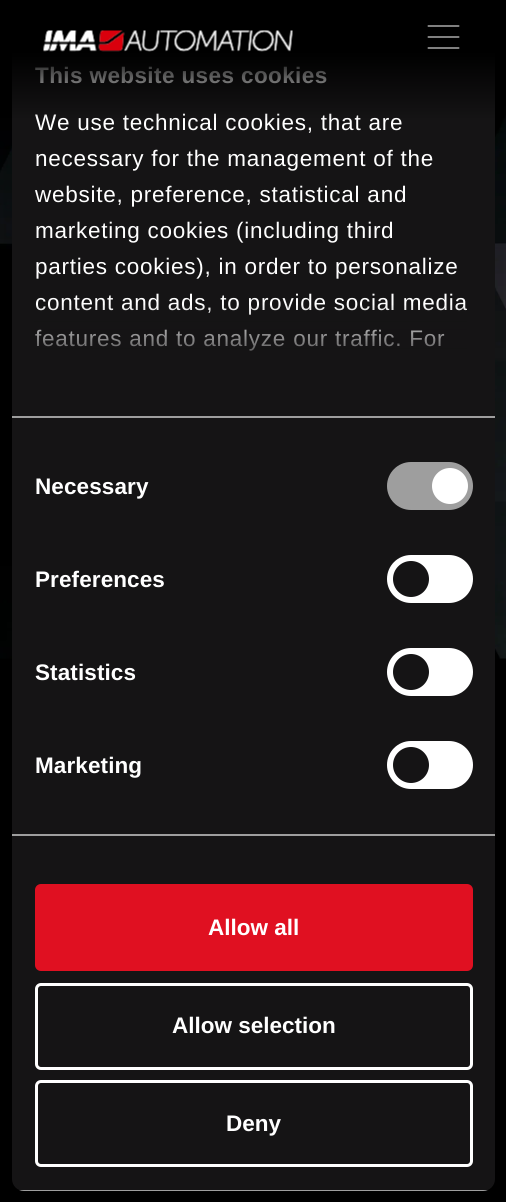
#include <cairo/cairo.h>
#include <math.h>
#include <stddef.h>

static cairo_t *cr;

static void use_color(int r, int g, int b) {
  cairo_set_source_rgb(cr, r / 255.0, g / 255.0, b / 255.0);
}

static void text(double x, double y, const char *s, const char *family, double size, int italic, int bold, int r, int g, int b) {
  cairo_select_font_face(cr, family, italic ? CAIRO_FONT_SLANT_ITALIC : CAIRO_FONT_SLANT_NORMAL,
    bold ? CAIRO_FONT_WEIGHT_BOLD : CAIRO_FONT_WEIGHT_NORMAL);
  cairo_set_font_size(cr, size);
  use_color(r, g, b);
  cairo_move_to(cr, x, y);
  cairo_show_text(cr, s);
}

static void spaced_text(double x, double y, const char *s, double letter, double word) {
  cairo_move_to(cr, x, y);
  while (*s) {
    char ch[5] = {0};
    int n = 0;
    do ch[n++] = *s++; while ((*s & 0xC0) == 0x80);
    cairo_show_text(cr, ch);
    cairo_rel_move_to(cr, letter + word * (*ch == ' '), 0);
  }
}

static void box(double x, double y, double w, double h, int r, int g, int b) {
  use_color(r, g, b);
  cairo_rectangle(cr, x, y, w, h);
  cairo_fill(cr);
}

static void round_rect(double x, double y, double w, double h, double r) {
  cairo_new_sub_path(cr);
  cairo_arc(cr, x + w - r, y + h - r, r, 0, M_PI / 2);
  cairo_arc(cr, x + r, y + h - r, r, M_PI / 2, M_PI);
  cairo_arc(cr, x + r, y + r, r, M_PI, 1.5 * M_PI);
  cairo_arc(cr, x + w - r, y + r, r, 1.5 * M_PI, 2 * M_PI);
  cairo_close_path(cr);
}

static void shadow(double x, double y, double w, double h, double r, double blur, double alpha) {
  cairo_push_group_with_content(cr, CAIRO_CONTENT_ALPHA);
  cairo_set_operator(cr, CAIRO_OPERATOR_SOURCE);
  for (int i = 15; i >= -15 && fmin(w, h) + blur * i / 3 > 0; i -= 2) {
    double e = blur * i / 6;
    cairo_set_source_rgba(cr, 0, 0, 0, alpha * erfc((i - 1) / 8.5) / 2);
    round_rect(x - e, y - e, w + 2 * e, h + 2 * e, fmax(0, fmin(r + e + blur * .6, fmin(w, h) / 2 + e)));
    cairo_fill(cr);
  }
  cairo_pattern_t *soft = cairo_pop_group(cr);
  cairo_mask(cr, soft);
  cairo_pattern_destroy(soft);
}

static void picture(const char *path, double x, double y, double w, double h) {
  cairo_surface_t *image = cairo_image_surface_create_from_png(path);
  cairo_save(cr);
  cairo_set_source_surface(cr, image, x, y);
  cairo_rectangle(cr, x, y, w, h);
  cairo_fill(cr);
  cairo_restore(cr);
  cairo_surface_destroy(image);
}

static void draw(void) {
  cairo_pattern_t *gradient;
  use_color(0, 0, 0);
  cairo_paint(cr);
  picture("img_02.png", 0, 52, 506, 607);
  shadow(12, 60, 483, 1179, 12, 51, 0.3);
  use_color(21, 20, 21);
  round_rect(12, 12, 483, 1179, 12);
  cairo_fill(cr);
  box(12, 416, 483, 2, 158, 158, 158);
  box(12, 834, 483, 2, 158, 158, 158);
  round_rect(387, 462, 86, 48, 24);
  cairo_fill(cr);
  use_color(255, 255, 255);
  cairo_arc(cr, 450, 486, 18, 0, 2 * M_PI);
  cairo_fill(cr);
  round_rect(387, 555, 86, 48, 24);
  cairo_fill(cr);
  use_color(21, 20, 21);
  cairo_arc(cr, 411, 579, 18, 0, 2 * M_PI);
  cairo_fill(cr);
  use_color(255, 255, 255);
  round_rect(387, 648, 86, 48, 24);
  cairo_fill(cr);
  use_color(21, 20, 21);
  cairo_arc(cr, 411, 672, 18, 0, 2 * M_PI);
  cairo_fill(cr);
  use_color(255, 255, 255);
  round_rect(387, 741, 86, 48, 24);
  cairo_fill(cr);
  use_color(21, 20, 21);
  cairo_arc(cr, 411, 765, 18, 0, 2 * M_PI);
  cairo_fill(cr);
  cairo_save(cr);
  round_rect(12, 12, 483, 1179, 12);
  cairo_clip(cr);
  box(12, 1190, 483, 1, 158, 158, 158);
  cairo_restore(cr);
  use_color(224, 16, 33);
  round_rect(36.5, 885.5, 435, 84, 4.5);
  cairo_fill_preserve(cr);
  cairo_set_line_width(cr, 3);
  cairo_stroke(cr);
  round_rect(36.5, 984.5, 435, 84, 4.5);
  use_color(255, 255, 255);
  cairo_stroke(cr);
  round_rect(36.5, 1081.5, 435, 84, 4.5);
  cairo_stroke(cr);
  cairo_select_font_face(cr, "Liberation Sans", CAIRO_FONT_SLANT_NORMAL, CAIRO_FONT_WEIGHT_BOLD);
  cairo_set_font_size(cr, 22.5);
  spaced_text(35, 83, "This website uses cookies", 0.4, 0);
  cairo_select_font_face(cr, "Liberation Sans", CAIRO_FONT_SLANT_NORMAL, CAIRO_FONT_WEIGHT_NORMAL);
  spaced_text(35, 130, "We use technical cookies, that are", 0.75, 0);
  gradient = cairo_pattern_create_linear(254, 126, 254, 0);
  cairo_pattern_add_color_stop_rgba(gradient, 0.05, 0, 0, 0, 0);
  cairo_pattern_add_color_stop_rgba(gradient, 0.59, 0, 0, 0, 1);
  cairo_set_source(cr, gradient);
  cairo_pattern_destroy(gradient);
  cairo_rectangle(cr, 12, 12, 483, 106);
  cairo_fill(cr);
  cairo_new_path(cr);
  cairo_move_to(cr, 428.5, 26);
  cairo_line_to(cr, 458.5, 26);
  cairo_move_to(cr, 428.5, 37);
  cairo_line_to(cr, 458.5, 37);
  cairo_move_to(cr, 428.5, 48);
  cairo_line_to(cr, 458.5, 48);
  use_color(128, 128, 128);
  cairo_set_line_width(cr, 2);
  cairo_set_line_cap(cr, CAIRO_LINE_CAP_ROUND);
  cairo_stroke(cr);
  picture("img_01.png", 43, 30, 250, 22);
  use_color(255, 255, 255);
  spaced_text(35, 166, "necessary for the management of the", 0.75, 0);
  spaced_text(35, 202, "website, preference, statistical and", 0.75, 0);
  spaced_text(35, 238, "marketing cookies (including third", 0.75, 0);
  spaced_text(35, 274, "parties cookies), in order to personalize", 0.75, 0);
  spaced_text(35, 310, "content and ads, to provide social media", 0.75, 0);
  spaced_text(35, 346, "features and to analyze our traffic. For", 0.75, 0);
  gradient = cairo_pattern_create_linear(244, 416, 244, 303);
  cairo_pattern_add_color_stop_rgba(gradient, 0, 0.082, 0.078, 0.082, 1);
  cairo_pattern_add_color_stop_rgba(gradient, 0.5, 0.082, 0.078, 0.082, 0.8);
  cairo_pattern_add_color_stop_rgba(gradient, 1, 0.082, 0.078, 0.082, 0);
  cairo_set_source(cr, gradient);
  cairo_pattern_destroy(gradient);
  cairo_rectangle(cr, 34, 305, 433, 46);
  cairo_fill(cr);
  cairo_select_font_face(cr, "Liberation Sans", CAIRO_FONT_SLANT_NORMAL, CAIRO_FONT_WEIGHT_BOLD);
  use_color(255, 255, 255);
  spaced_text(35, 494, "Necessary", 0.1, 0);
  spaced_text(35, 587, "Preferences", 0.1, 0);
  spaced_text(35, 680, "Statistics", 0.1, 0);
  spaced_text(35, 773, "Marketing", 0.1, 0);
  text(208, 935, "Allow all", "Liberation Sans", 22.5, 0, 1, 255, 255, 255);
  text(172, 1033, "Allow selection", "Liberation Sans", 22.5, 0, 1, 255, 255, 255);
  text(226, 1131, "Deny", "Liberation Sans", 22.5, 0, 1, 255, 255, 255);
}

int main(void) {
  cairo_surface_t *surface = cairo_image_surface_create(CAIRO_FORMAT_RGB24, 506, 1202);
  cr = cairo_create(surface);
  cairo_font_options_t *options = cairo_font_options_create();
  cairo_font_options_set_hint_metrics(options, CAIRO_HINT_METRICS_OFF);
  cairo_font_options_set_hint_style(options, CAIRO_HINT_STYLE_NONE);
  cairo_set_font_options(cr, options);
  cairo_set_miter_limit(cr, 4);
  draw();
  cairo_surface_write_to_png(surface, "out.png");
  cairo_font_options_destroy(options);
  cairo_destroy(cr);
  cairo_surface_destroy(surface);
  return 0;
}
